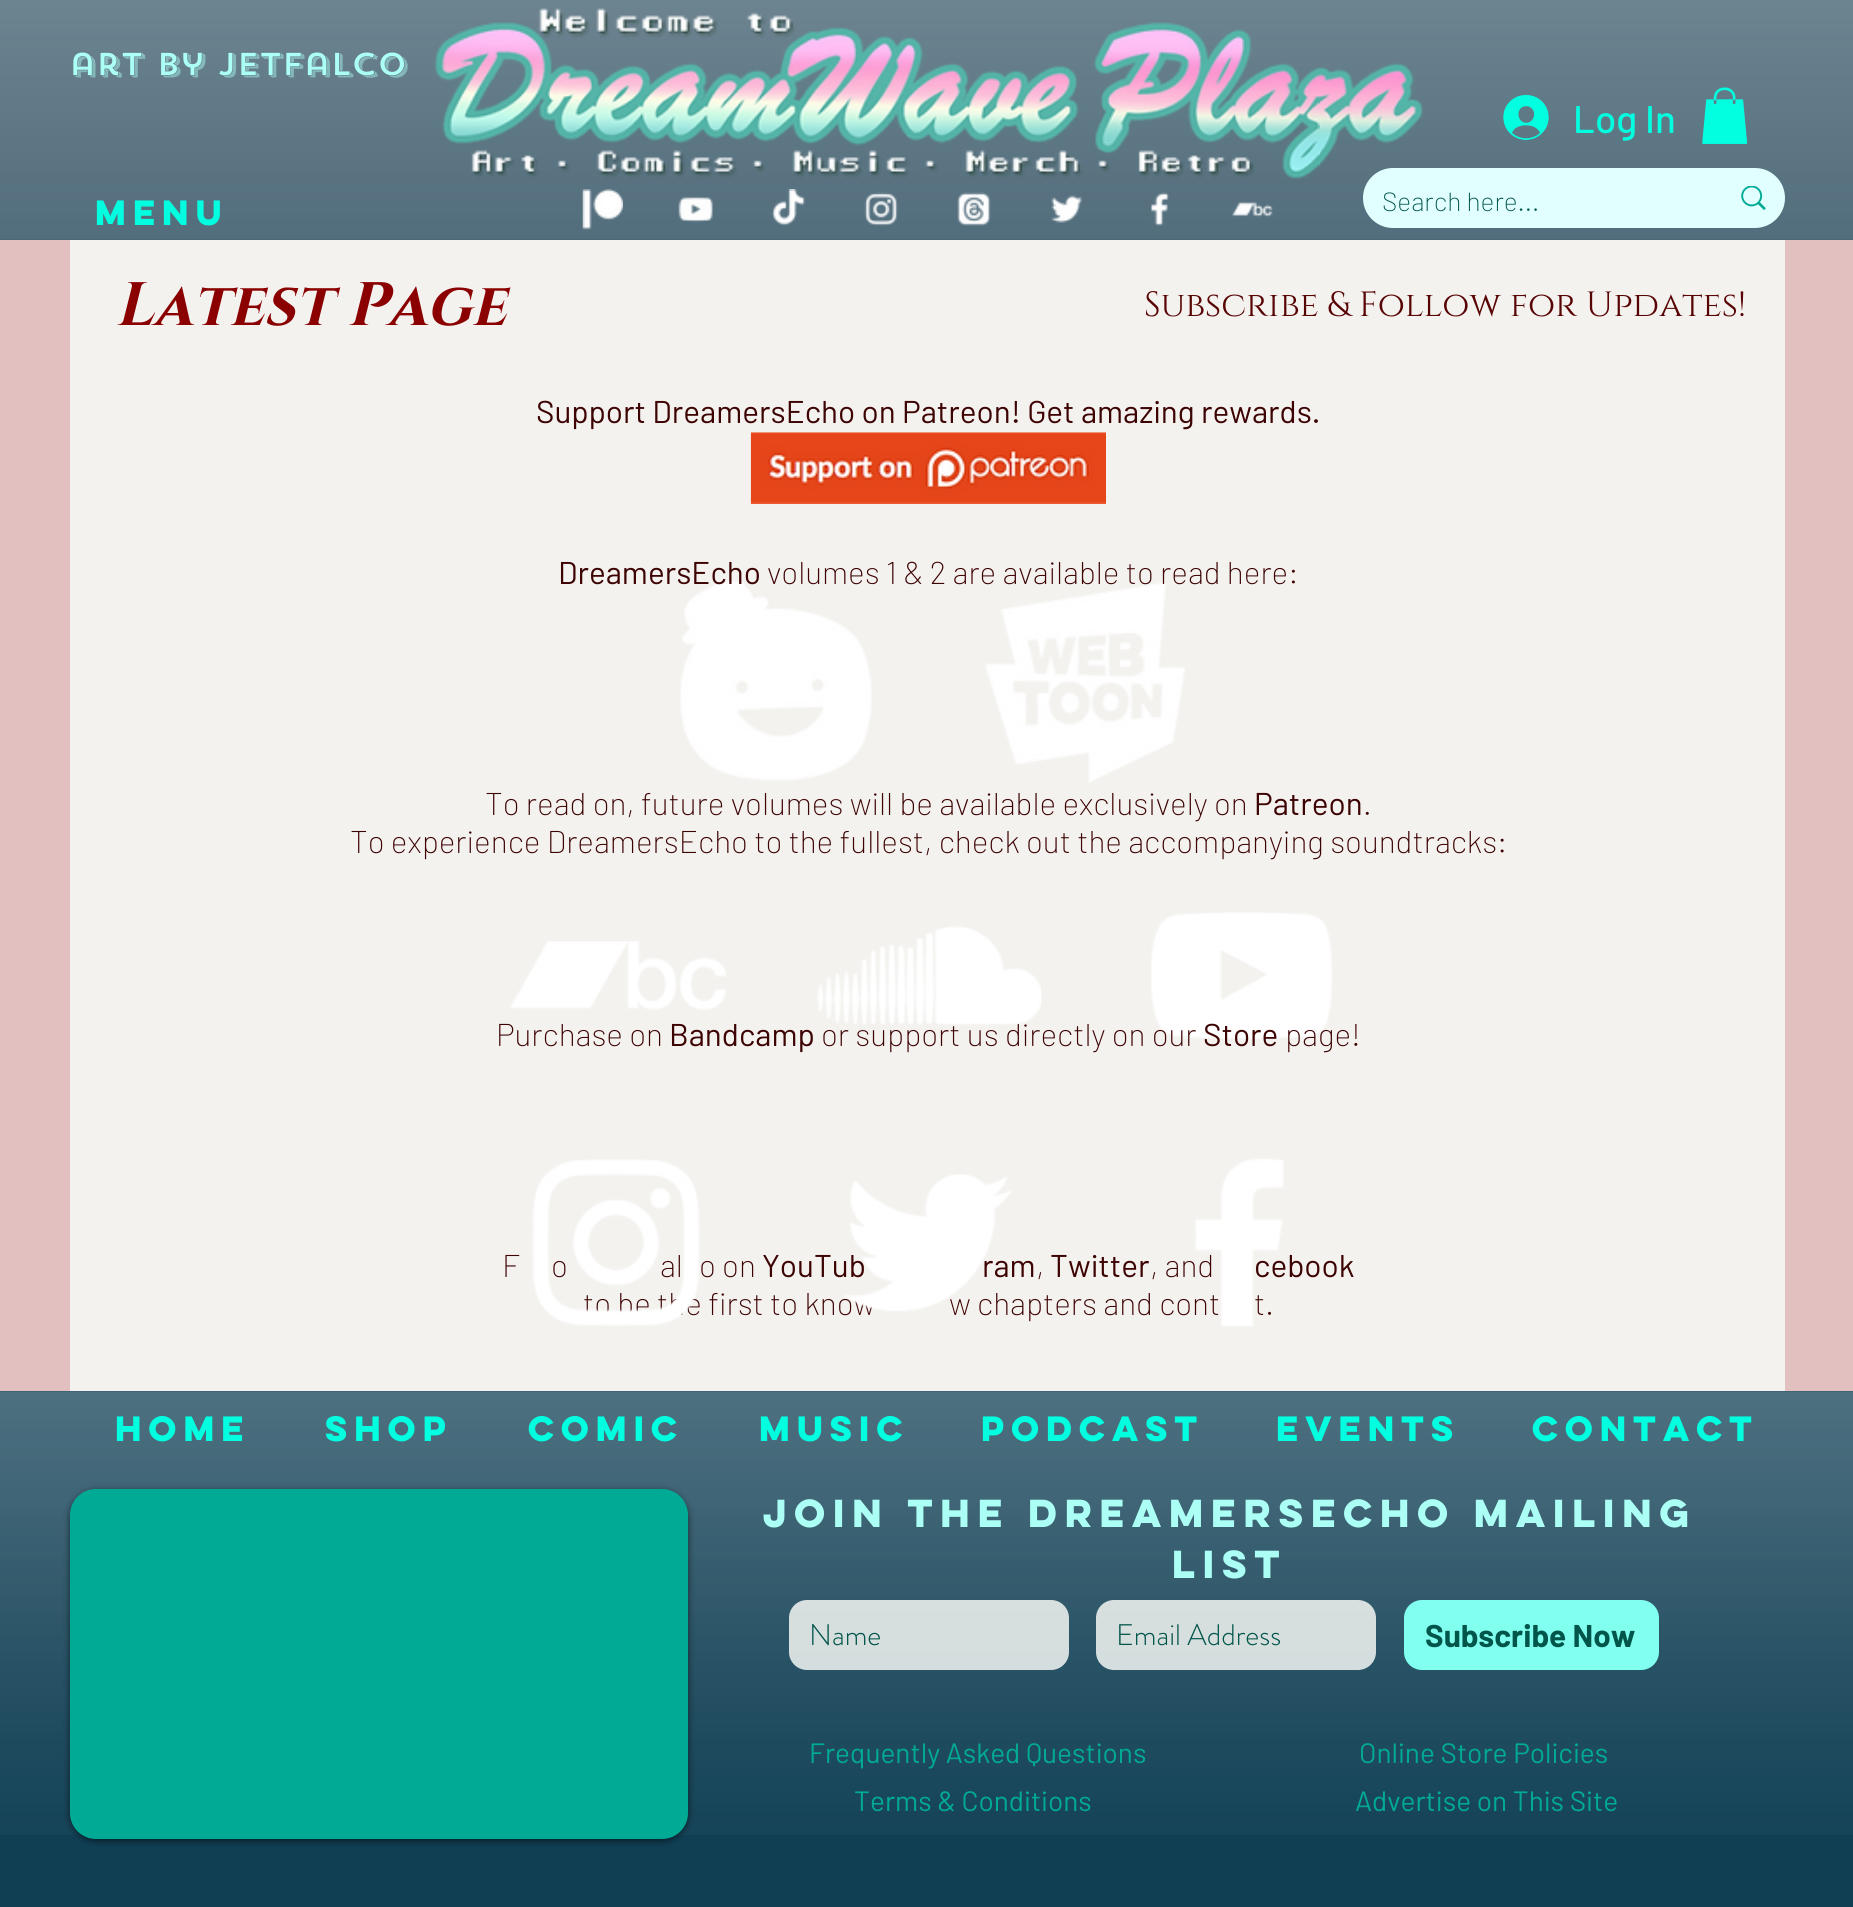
#include <cairo/cairo.h>
#include <math.h>
#include <stddef.h>

static cairo_t *cr;

static void use_color(int r, int g, int b) {
  cairo_set_source_rgb(cr, r / 255.0, g / 255.0, b / 255.0);
}

static void text(double x, double y, const char *s, const char *family, double size, int italic, int bold, int r, int g, int b) {
  cairo_select_font_face(cr, family, italic ? CAIRO_FONT_SLANT_ITALIC : CAIRO_FONT_SLANT_NORMAL,
    bold ? CAIRO_FONT_WEIGHT_BOLD : CAIRO_FONT_WEIGHT_NORMAL);
  cairo_set_font_size(cr, size);
  use_color(r, g, b);
  cairo_move_to(cr, x, y);
  cairo_show_text(cr, s);
}

static void box(double x, double y, double w, double h, int r, int g, int b) {
  use_color(r, g, b);
  cairo_rectangle(cr, x, y, w, h);
  cairo_fill(cr);
}

static void round_rect(double x, double y, double w, double h, double r) {
  cairo_new_sub_path(cr);
  cairo_arc(cr, x + w - r, y + h - r, r, 0, M_PI / 2);
  cairo_arc(cr, x + r, y + h - r, r, M_PI / 2, M_PI);
  cairo_arc(cr, x + r, y + r, r, M_PI, 1.5 * M_PI);
  cairo_arc(cr, x + w - r, y + r, r, 1.5 * M_PI, 2 * M_PI);
  cairo_close_path(cr);
}

static void shadow(double x, double y, double w, double h, double r, double blur, double alpha) {
  cairo_push_group_with_content(cr, CAIRO_CONTENT_ALPHA);
  cairo_set_operator(cr, CAIRO_OPERATOR_SOURCE);
  for (int i = 15; i >= -15 && fmin(w, h) + blur * i / 3 > 0; i -= 2) {
    double e = blur * i / 6;
    cairo_set_source_rgba(cr, 0, 0, 0, alpha * erfc((i - 1) / 8.5) / 2);
    round_rect(x - e, y - e, w + 2 * e, h + 2 * e, fmax(0, fmin(r + e + blur * .6, fmin(w, h) / 2 + e)));
    cairo_fill(cr);
  }
  cairo_pattern_t *soft = cairo_pop_group(cr);
  cairo_mask(cr, soft);
  cairo_pattern_destroy(soft);
}

static void picture(const char *path, double x, double y, double w, double h) {
  cairo_surface_t *image = cairo_image_surface_create_from_png(path);
  cairo_save(cr);
  cairo_set_source_surface(cr, image, x, y);
  cairo_rectangle(cr, x, y, w, h);
  cairo_fill(cr);
  cairo_restore(cr);
  cairo_surface_destroy(image);
}

static void draw(void) {
  use_color(227, 192, 192);
  cairo_paint(cr);
  box(0, 0, 1853, 240, 58, 89, 106);
  picture("img_01.png", 0, 0, 1853, 240);
  picture("img_02.png", 434, 8, 989, 171);
  picture("img_03.png", 1503, 95, 46, 45);
  picture("img_04.png", 1702, 87, 46, 57);
  picture("img_05.png", 582, 189, 41, 41);
  picture("img_06.png", 678, 197, 35, 26);
  picture("img_07.png", 771, 189, 35, 37);
  picture("img_08.png", 864, 192, 34, 34);
  picture("img_09.png", 957, 192, 34, 34);
  picture("img_10.png", 1051, 195, 31, 28);
  picture("img_11.png", 1150, 192, 19, 34);
  picture("img_12.png", 1232, 201, 41, 17);
  use_color(226, 255, 255);
  round_rect(1363, 168, 422, 60, 30);
  cairo_fill(cr);
  picture("img_13.png", 1741, 186, 25, 24);
  box(70, 240, 1715, 1151, 243, 242, 239);
  picture("img_14.png", 750, 432, 356, 72);
  picture("img_15.png", 680, 580, 192, 201);
  picture("img_16.png", 985, 582, 200, 201);
  picture("img_17.png", 510, 941, 217, 69);
  picture("img_18.png", 817, 926, 225, 99);
  picture("img_19.png", 1151, 912, 181, 127);
  box(0, 1391, 1853, 516, 16, 63, 84);
  picture("img_23.png", 0, 1391, 1853, 444);
  use_color(0, 0, 0);
  shadow(70, 1491, 618, 350, 26, 3.5, 0.6);
  use_color(1, 170, 149);
  round_rect(70, 1489, 618, 350, 26);
  cairo_fill(cr);
  cairo_set_source_rgba(cr, 0.965, 0.976, 0.961, 0.84);
  round_rect(789, 1600, 280, 70, 18);
  cairo_fill(cr);
  round_rect(1096, 1600, 280, 70, 18);
  cairo_fill(cr);
  use_color(129, 255, 239);
  round_rect(1404, 1600, 255, 70, 18);
  cairo_fill(cr);
  text(69, 75, "art by jetfalco", "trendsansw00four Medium", 31.5, 0, 0, 171, 255, 244);
  text(1573, 133, "Log In", "Barlow Medium", 38.5, 0, 0, 2, 255, 223);
  text(95, 225, "Menu", "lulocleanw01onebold", 31.5, 0, 1, 2, 255, 223);
  text(1382, 211, "Search here...", "Barlow ExtraLight", 26.25, 0, 0, 1, 85, 74);
  text(115, 325, "Latest Page", "Cinzel", 61.25, 1, 1, 139, 0, 0);
  text(1144, 316, "Subscribe & Follow for Updates!", "Cinzel", 35, 0, 0, 89, 4, 4);
  text(536, 423, "Support DreamersEcho on Patreon! Get amazing rewards.", "Barlow", 31.5, 0, 0, 61, 3, 3);
  text(558, 584, "DreamersEcho", "Barlow", 31.5, 0, 0, 61, 3, 3);
  text(767, 584, "volumes 1 & 2 are available to read here:", "Barlow ExtraLight", 31.5, 0, 0, 61, 3, 3);
  text(485, 815, "To read on, future volumes will be available exclusively on", "Barlow ExtraLight", 31.5, 0, 0, 61, 3, 3);
  text(1254, 815, "Patreon", "Barlow", 31.5, 0, 0, 61, 3, 3);
  text(1363, 815, ".", "Barlow ExtraLight", 31.5, 0, 0, 61, 3, 3);
  text(350, 853, "To experience DreamersEcho to the fullest, check out the accompanying soundtracks:", "Barlow ExtraLight", 31.5, 0, 0, 61, 3, 3);
  text(496, 1046, "Purchase on", "Barlow ExtraLight", 31.5, 0, 0, 61, 3, 3);
  text(669, 1046, "Bandcamp", "Barlow", 31.5, 0, 0, 61, 3, 3);
  text(821, 1046, "or support us directly on our", "Barlow ExtraLight", 31.5, 0, 0, 61, 3, 3);
  text(1203, 1046, "Store", "Barlow", 31.5, 0, 0, 61, 3, 3);
  text(1285, 1046, "page!", "Barlow ExtraLight", 31.5, 0, 0, 61, 3, 3);
  text(502, 1277, "F", "Barlow ExtraLight", 31.5, 0, 0, 61, 3, 3);
  text(551, 1277, "o", "Barlow ExtraLight", 31.5, 0, 0, 61, 3, 3);
  text(660, 1277, "alco on", "Barlow ExtraLight", 31.5, 0, 0, 61, 3, 3);
  text(762, 1277, "YouTub", "Barlow", 31.5, 0, 0, 61, 3, 3);
  text(982, 1277, "ram", "Barlow", 31.5, 0, 0, 61, 3, 3);
  text(1036, 1277, ",", "Barlow ExtraLight", 31.5, 0, 0, 61, 3, 3);
  text(1050, 1277, "Twitter", "Barlow", 31.5, 0, 0, 61, 3, 3);
  text(1150, 1277, ", and", "Barlow ExtraLight", 31.5, 0, 0, 61, 3, 3);
  text(1254, 1277, "cebook", "Barlow", 31.5, 0, 0, 61, 3, 3);
  text(583, 1315, "to be the first to know", "Barlow ExtraLight", 31.5, 0, 0, 61, 3, 3);
  text(949, 1315, "w chapters and cont", "Barlow ExtraLight", 31.5, 0, 0, 61, 3, 3);
  text(1254, 1315, "t.", "Barlow ExtraLight", 31.5, 0, 0, 61, 3, 3);
  picture("img_20.png", 531, 1159, 169, 167);
  picture("img_21.png", 844, 1174, 168, 139);
  picture("img_22.png", 1195, 1158, 89, 169);
  text(115, 1441, "Home", "lulocleanw01onebold", 31.5, 0, 1, 2, 255, 223);
  text(325, 1441, "Shop", "lulocleanw01onebold", 31.5, 0, 1, 2, 255, 223);
  text(528, 1441, "Comic", "lulocleanw01onebold", 31.5, 0, 1, 2, 255, 223);
  text(759, 1441, "Music", "lulocleanw01onebold", 31.5, 0, 1, 2, 255, 223);
  text(981, 1441, "Podcast", "lulocleanw01onebold", 31.5, 0, 1, 2, 255, 223);
  text(1276, 1441, "Events", "lulocleanw01onebold", 31.5, 0, 1, 2, 255, 223);
  text(1532, 1441, "Contact", "lulocleanw01onebold", 31.5, 0, 1, 2, 255, 223);
  text(763, 1527, "Join the DreamersEcho Mailing", "lulocleanw01onebold", 35, 0, 1, 171, 255, 244);
  text(1172, 1578, "List", "lulocleanw01onebold", 35, 0, 1, 171, 255, 244);
  text(809, 1645, "Name", "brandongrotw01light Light", 29.75, 0, 0, 1, 85, 74);
  text(1116, 1645, "Email Address", "brandongrotw01light Light", 29.75, 0, 0, 1, 85, 74);
  text(1425, 1647, "Subscribe Now", "Barlow", 31.5, 0, 1, 1, 85, 74);
  text(809, 1763, "Frequently Asked Questions", "Barlow", 28, 0, 0, 1, 170, 149);
  text(1359, 1763, "Online Store Policies", "Barlow", 28, 0, 0, 1, 170, 149);
  text(854, 1811, "Terms & Conditions", "Barlow", 28, 0, 0, 1, 170, 149);
  text(1355, 1811, "Advertise on This Site", "Barlow", 28, 0, 0, 1, 170, 149);
}

int main(void) {
  cairo_surface_t *surface = cairo_image_surface_create(CAIRO_FORMAT_RGB24, 1853, 1907);
  cr = cairo_create(surface);
  cairo_font_options_t *options = cairo_font_options_create();
  cairo_font_options_set_hint_metrics(options, CAIRO_HINT_METRICS_OFF);
  cairo_font_options_set_hint_style(options, CAIRO_HINT_STYLE_NONE);
  cairo_set_font_options(cr, options);
  cairo_set_miter_limit(cr, 4);
  draw();
  cairo_surface_write_to_png(surface, "out.png");
  cairo_font_options_destroy(options);
  cairo_destroy(cr);
  cairo_surface_destroy(surface);
  return 0;
}
